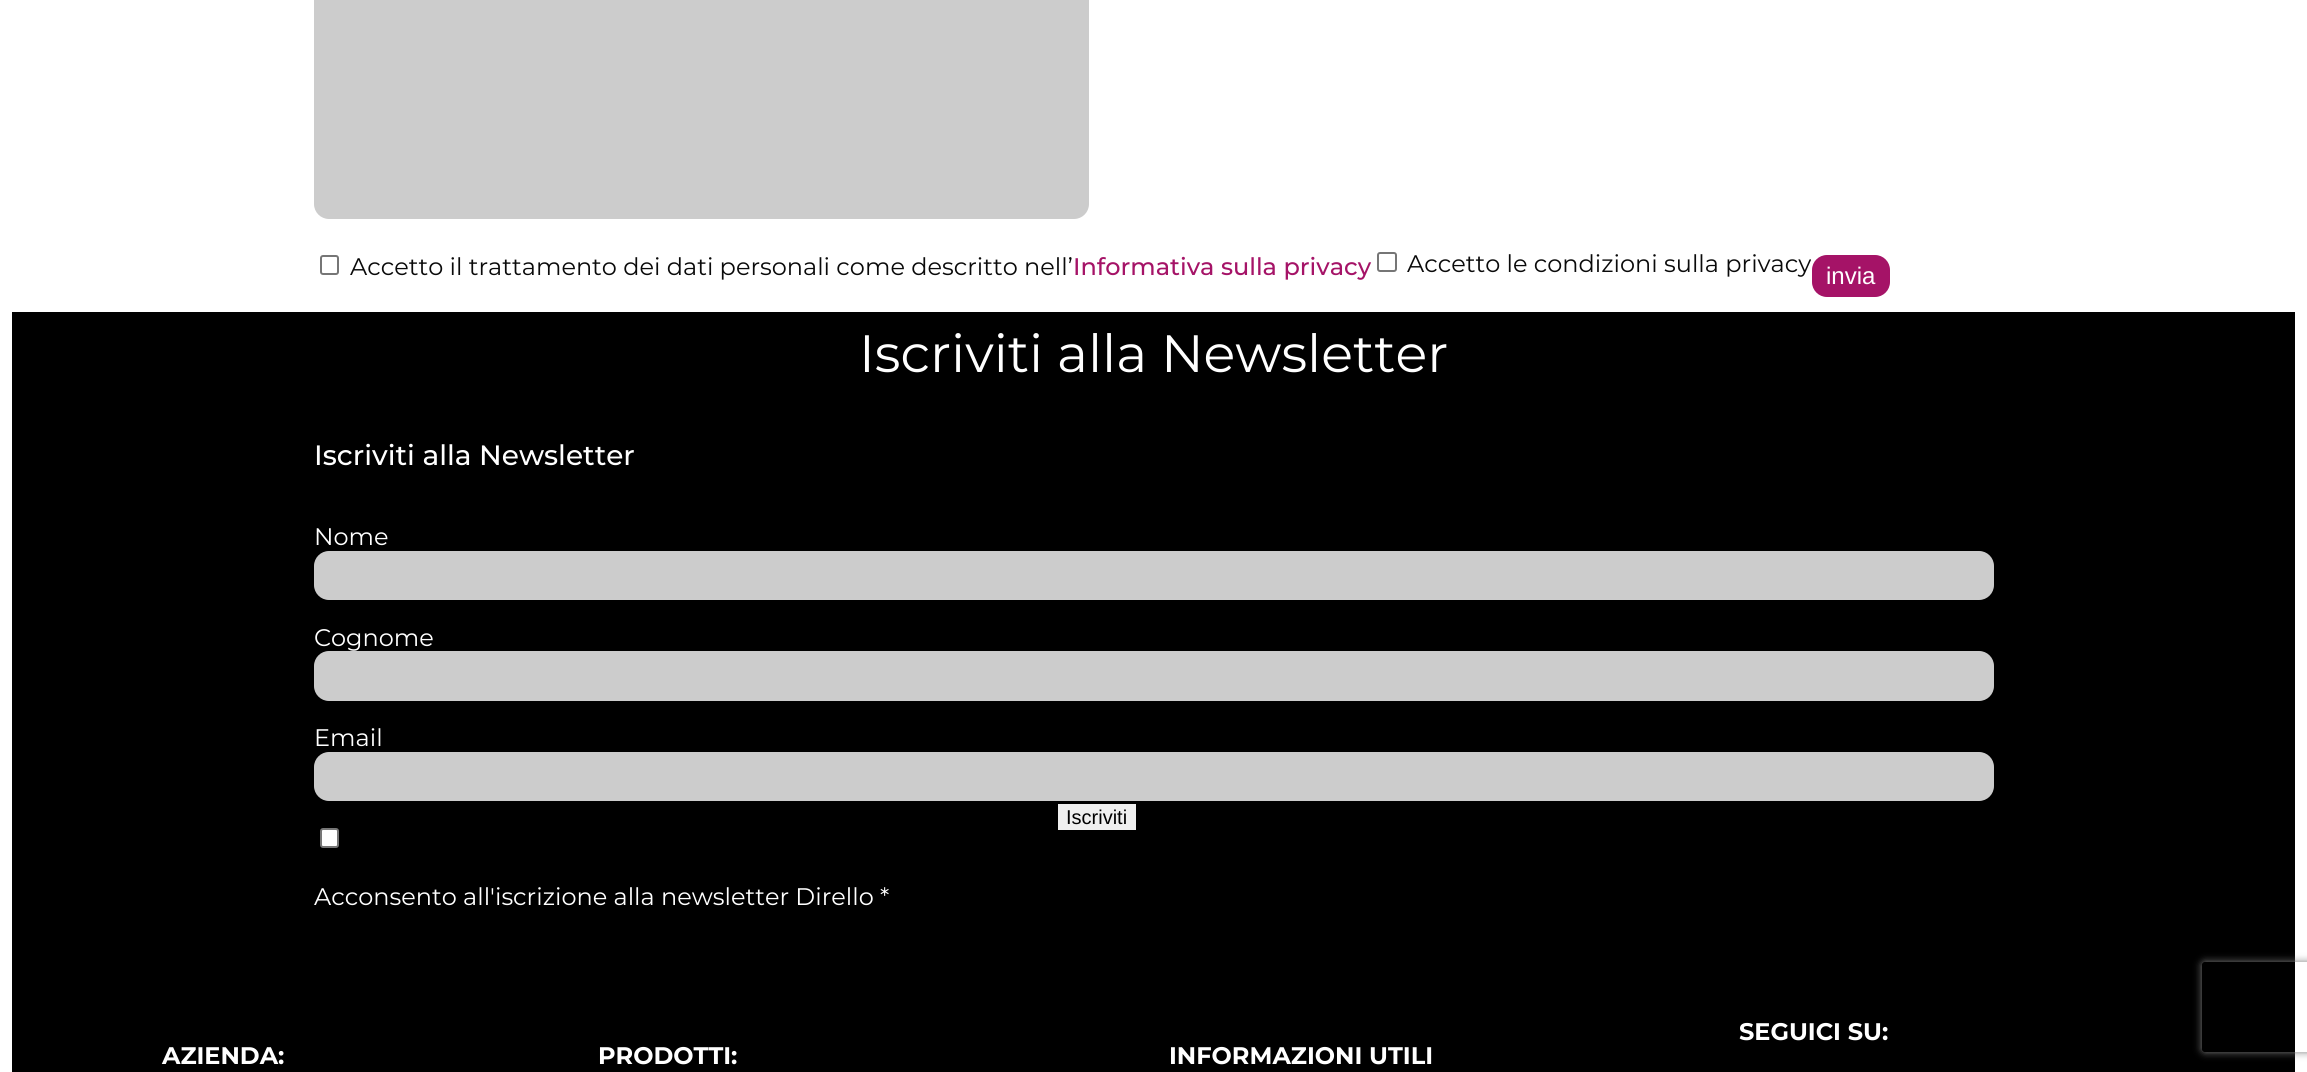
#include <cairo/cairo.h>
#include <math.h>
#include <stddef.h>

static cairo_t *cr;

static void use_color(int r, int g, int b) {
  cairo_set_source_rgb(cr, r / 255.0, g / 255.0, b / 255.0);
}

static void text(double x, double y, const char *s, const char *family, double size, int italic, int bold, int r, int g, int b) {
  cairo_select_font_face(cr, family, italic ? CAIRO_FONT_SLANT_ITALIC : CAIRO_FONT_SLANT_NORMAL,
    bold ? CAIRO_FONT_WEIGHT_BOLD : CAIRO_FONT_WEIGHT_NORMAL);
  cairo_set_font_size(cr, size);
  use_color(r, g, b);
  cairo_move_to(cr, x, y);
  cairo_show_text(cr, s);
}

static void box(double x, double y, double w, double h, int r, int g, int b) {
  use_color(r, g, b);
  cairo_rectangle(cr, x, y, w, h);
  cairo_fill(cr);
}

static void round_rect(double x, double y, double w, double h, double r) {
  cairo_new_sub_path(cr);
  cairo_arc(cr, x + w - r, y + h - r, r, 0, M_PI / 2);
  cairo_arc(cr, x + r, y + h - r, r, M_PI / 2, M_PI);
  cairo_arc(cr, x + r, y + r, r, M_PI, 1.5 * M_PI);
  cairo_arc(cr, x + w - r, y + r, r, 1.5 * M_PI, 2 * M_PI);
  cairo_close_path(cr);
}

static void shadow(double x, double y, double w, double h, double r, double blur, double alpha) {
  cairo_push_group_with_content(cr, CAIRO_CONTENT_ALPHA);
  cairo_set_operator(cr, CAIRO_OPERATOR_SOURCE);
  for (int i = 15; i >= -15 && fmin(w, h) + blur * i / 3 > 0; i -= 2) {
    double e = blur * i / 6;
    cairo_set_source_rgba(cr, 0, 0, 0, alpha * erfc((i - 1) / 8.5) / 2);
    round_rect(x - e, y - e, w + 2 * e, h + 2 * e, fmax(0, fmin(r + e + blur * .6, fmin(w, h) / 2 + e)));
    cairo_fill(cr);
  }
  cairo_pattern_t *soft = cairo_pop_group(cr);
  cairo_mask(cr, soft);
  cairo_pattern_destroy(soft);
}

static void draw(void) {
  use_color(255, 255, 255);
  cairo_paint(cr);
  use_color(204, 204, 204);
  round_rect(314, -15, 775, 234, 15);
  cairo_fill(cr);
  round_rect(321, 256, 17, 18, 2);
  use_color(118, 118, 118);
  cairo_stroke(cr);
  round_rect(1378, 253, 18, 18, 2);
  cairo_stroke(cr);
  use_color(165, 19, 103);
  round_rect(1812, 255, 78, 42, 15);
  cairo_fill(cr);
  box(12, 312, 2283, 760, 0, 0, 0);
  use_color(204, 204, 204);
  round_rect(314, 551, 1680, 49, 15);
  cairo_fill(cr);
  round_rect(314, 651, 1680, 50, 15);
  cairo_fill(cr);
  round_rect(314, 752, 1680, 49, 15);
  cairo_fill(cr);
  box(1058, 804, 78, 26, 239, 239, 239);
  use_color(255, 255, 255);
  round_rect(321, 829, 17, 18, 2);
  cairo_fill_preserve(cr);
  use_color(118, 118, 118);
  cairo_stroke(cr);
  cairo_save(cr);
  cairo_set_fill_rule(cr, CAIRO_FILL_RULE_EVEN_ODD);
  cairo_new_path(cr);
  cairo_move_to(cr, 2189, 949);
  cairo_line_to(cr, 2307, 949);
  cairo_line_to(cr, 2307, 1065);
  cairo_line_to(cr, 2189, 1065);
  cairo_close_path(cr);
  cairo_move_to(cr, 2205, 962);
  cairo_line_to(cr, 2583, 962);
  cairo_curve_to(cr, 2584.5, 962, 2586, 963.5, 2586, 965);
  cairo_line_to(cr, 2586, 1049);
  cairo_curve_to(cr, 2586, 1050.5, 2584.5, 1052, 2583, 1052);
  cairo_line_to(cr, 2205, 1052);
  cairo_curve_to(cr, 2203.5, 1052, 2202, 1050.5, 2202, 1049);
  cairo_line_to(cr, 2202, 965);
  cairo_curve_to(cr, 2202, 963.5, 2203.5, 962, 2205, 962);
  cairo_close_path(cr);
  cairo_clip(cr);
  use_color(128, 128, 128);
  shadow(2202, 962, 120, 90, 3, 4, 1);
  cairo_restore(cr);
  text(350, 275, "Accetto il trattamento dei dati personali come descritto nell’", "Montserrat", 24, 0, 0, 10, 10, 10);
  text(1073, 275, "Informativa sulla privacy", "Montserrat Medium", 24, 0, 0, 165, 19, 103);
  text(1407, 272, "Accetto le condizioni sulla privacy", "Montserrat", 24, 0, 0, 10, 10, 10);
  text(1826, 284, "invia", "Liberation Sans", 24, 0, 0, 255, 255, 255);
  text(859, 372, "Iscriviti alla Newsletter", "Montserrat", 52.5, 0, 0, 255, 255, 255);
  text(314, 465, "Iscriviti alla Newsletter", "Montserrat Medium", 28, 0, 0, 255, 255, 255);
  text(314, 545, "Nome", "Montserrat", 24, 0, 0, 255, 255, 255);
  text(314, 646, "Cognome", "Montserrat", 24, 0, 0, 255, 255, 255);
  text(314, 746, "Email", "Montserrat", 24, 0, 0, 255, 255, 255);
  text(1066, 824, "Iscriviti", "Liberation Sans", 20, 0, 0, 0, 0, 0);
  text(314, 905, "Acconsento all'iscrizione alla newsletter Dirello *", "Montserrat", 24, 0, 0, 255, 255, 255);
  text(1739, 1040, "SEGUICI SU:", "Montserrat", 24, 0, 1, 255, 255, 255);
  text(162, 1064, "AZIENDA:", "Montserrat", 24, 0, 1, 255, 255, 255);
  text(598, 1064, "PRODOTTI:", "Montserrat", 24, 0, 1, 255, 255, 255);
  text(1169, 1064, "INFORMAZIONI UTILI", "Montserrat", 24, 0, 1, 255, 255, 255);
}

int main(void) {
  cairo_surface_t *surface = cairo_image_surface_create(CAIRO_FORMAT_RGB24, 2307, 1072);
  cr = cairo_create(surface);
  cairo_font_options_t *options = cairo_font_options_create();
  cairo_font_options_set_hint_metrics(options, CAIRO_HINT_METRICS_OFF);
  cairo_font_options_set_hint_style(options, CAIRO_HINT_STYLE_NONE);
  cairo_set_font_options(cr, options);
  cairo_set_miter_limit(cr, 4);
  draw();
  cairo_surface_write_to_png(surface, "out.png");
  cairo_font_options_destroy(options);
  cairo_destroy(cr);
  cairo_surface_destroy(surface);
  return 0;
}
